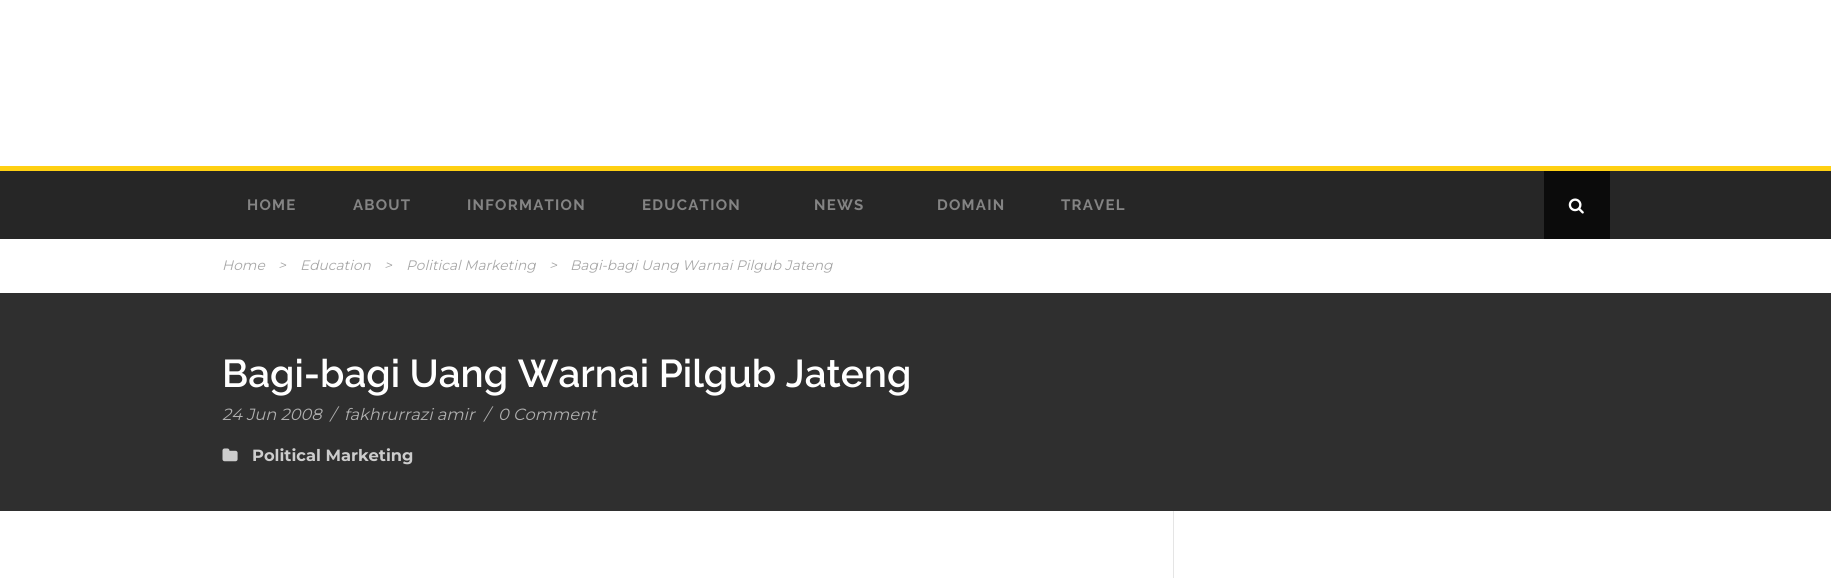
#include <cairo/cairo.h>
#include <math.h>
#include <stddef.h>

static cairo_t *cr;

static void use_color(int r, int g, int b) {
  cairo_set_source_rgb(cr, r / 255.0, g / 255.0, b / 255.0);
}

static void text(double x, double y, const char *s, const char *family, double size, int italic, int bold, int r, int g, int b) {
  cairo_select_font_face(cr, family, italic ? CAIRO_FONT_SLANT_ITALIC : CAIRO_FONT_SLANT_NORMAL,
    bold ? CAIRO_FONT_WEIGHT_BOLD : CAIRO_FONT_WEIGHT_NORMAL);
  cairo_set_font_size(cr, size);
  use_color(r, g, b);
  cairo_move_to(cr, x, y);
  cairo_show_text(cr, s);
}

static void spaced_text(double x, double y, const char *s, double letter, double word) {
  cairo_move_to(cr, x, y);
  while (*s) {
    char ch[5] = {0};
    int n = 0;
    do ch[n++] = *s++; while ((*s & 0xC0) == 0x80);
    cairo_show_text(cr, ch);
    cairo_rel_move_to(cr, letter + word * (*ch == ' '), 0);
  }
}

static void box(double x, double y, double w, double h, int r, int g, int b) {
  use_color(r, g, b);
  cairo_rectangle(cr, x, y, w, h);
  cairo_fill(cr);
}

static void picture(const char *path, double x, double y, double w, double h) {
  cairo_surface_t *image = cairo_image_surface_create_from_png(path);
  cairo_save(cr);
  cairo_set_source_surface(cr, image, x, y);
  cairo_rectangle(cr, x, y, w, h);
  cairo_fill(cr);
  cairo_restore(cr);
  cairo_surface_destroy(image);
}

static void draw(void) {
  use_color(255, 255, 255);
  cairo_paint(cr);
  box(0, 171, 1831, 68, 38, 38, 38);
  box(0, 166, 1831, 5, 255, 208, 18);
  box(1544, 171, 66, 68, 11, 11, 11);
  picture("img_01.png", 1568, 198, 16, 16);
  box(0, 293, 1831, 218, 47, 47, 47);
  picture("img_02.png", 222, 448, 16, 14);
  box(1173, 511, 1, 67, 229, 229, 229);
  cairo_select_font_face(cr, "Raleway", CAIRO_FONT_SLANT_NORMAL, CAIRO_FONT_WEIGHT_BOLD);
  cairo_set_font_size(cr, 15);
  use_color(132, 132, 132);
  spaced_text(247, 210, "HOME", 1.25, 0);
  spaced_text(353, 210, "ABOUT", 1.25, 0);
  spaced_text(467, 210, "INFORMATION", 1.25, 0);
  spaced_text(642, 210, "EDUCATION", 1.25, 0);
  spaced_text(814, 210, "NEWS", 1.25, 0);
  spaced_text(937, 210, "DOMAIN", 1.25, 0);
  spaced_text(1061, 210, "TRAVEL", 1.25, 0);
  text(222, 270, "Home", "Montserrat", 13.75, 1, 0, 168, 168, 168);
  text(278, 270, ">", "Montserrat", 13.75, 1, 0, 168, 168, 168);
  text(300, 270, "Education", "Montserrat", 13.75, 1, 0, 168, 168, 168);
  text(384, 270, ">", "Montserrat", 13.75, 1, 0, 168, 168, 168);
  text(406, 270, "Political Marketing", "Montserrat", 13.75, 1, 0, 168, 168, 168);
  text(549, 270, ">", "Montserrat", 13.75, 1, 0, 168, 168, 168);
  text(570, 270, "Bagi-bagi Uang Warnai Pilgub Jateng", "Montserrat", 13.75, 1, 0, 168, 168, 168);
  text(222, 387, "Bagi-bagi Uang Warnai Pilgub Jateng", "Raleway SemiBold", 38.75, 0, 0, 255, 255, 255);
  text(222, 420, "24 Jun 2008", "Montserrat", 16.25, 1, 0, 175, 175, 175);
  text(330, 420, "/", "Montserrat", 16.25, 1, 0, 175, 175, 175);
  text(344, 420, "fakhrurrazi amir", "Montserrat", 16.25, 1, 0, 175, 175, 175);
  text(484, 420, "/", "Montserrat", 16.25, 1, 0, 175, 175, 175);
  text(498, 420, "0 Comment", "Montserrat", 16.25, 1, 0, 175, 175, 175);
  text(252, 461, "Political Marketing", "Montserrat", 16.25, 0, 1, 204, 204, 204);
}

int main(void) {
  cairo_surface_t *surface = cairo_image_surface_create(CAIRO_FORMAT_RGB24, 1831, 578);
  cr = cairo_create(surface);
  cairo_font_options_t *options = cairo_font_options_create();
  cairo_font_options_set_hint_metrics(options, CAIRO_HINT_METRICS_OFF);
  cairo_font_options_set_hint_style(options, CAIRO_HINT_STYLE_NONE);
  cairo_set_font_options(cr, options);
  cairo_set_miter_limit(cr, 4);
  draw();
  cairo_surface_write_to_png(surface, "out.png");
  cairo_font_options_destroy(options);
  cairo_destroy(cr);
  cairo_surface_destroy(surface);
  return 0;
}
